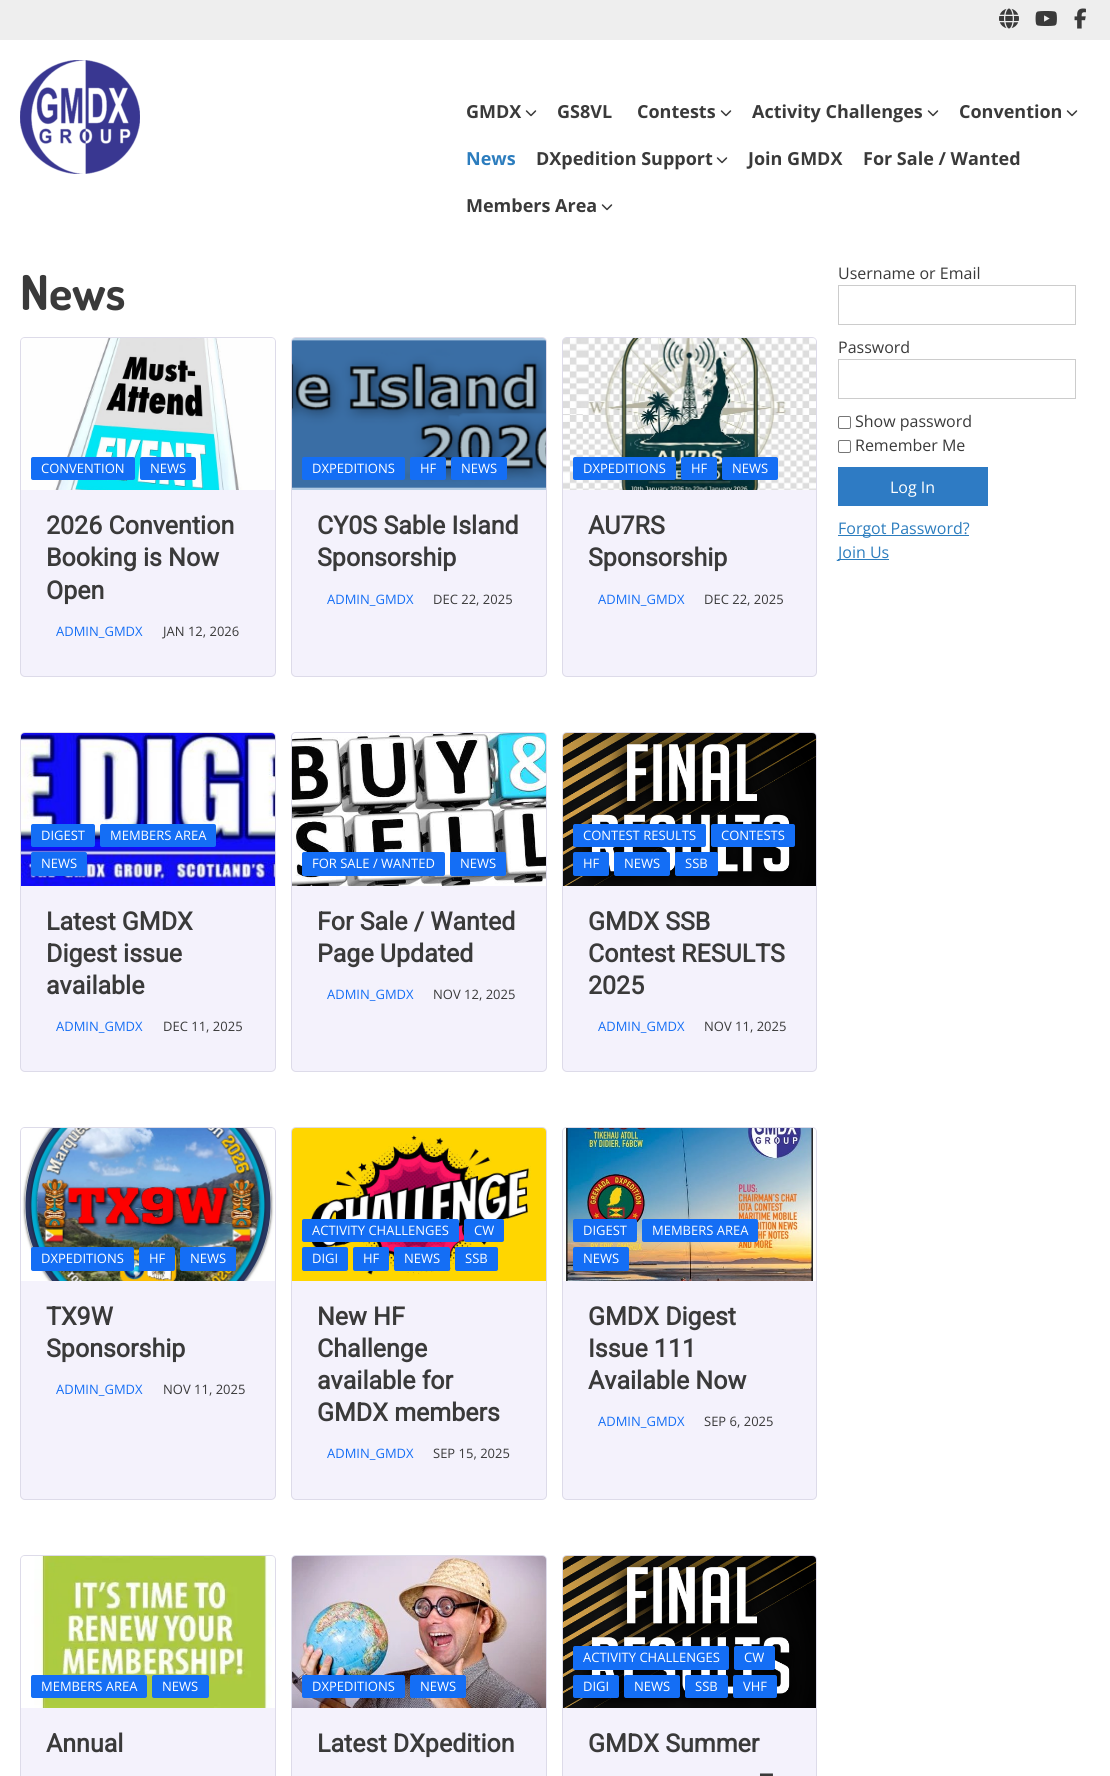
#include <cairo/cairo.h>
#include <math.h>
#include <stddef.h>

static cairo_t *cr;

static void use_color(int r, int g, int b) {
  cairo_set_source_rgb(cr, r / 255.0, g / 255.0, b / 255.0);
}

static void text(double x, double y, const char *s, const char *family, double size, int italic, int bold, int r, int g, int b) {
  cairo_select_font_face(cr, family, italic ? CAIRO_FONT_SLANT_ITALIC : CAIRO_FONT_SLANT_NORMAL,
    bold ? CAIRO_FONT_WEIGHT_BOLD : CAIRO_FONT_WEIGHT_NORMAL);
  cairo_set_font_size(cr, size);
  use_color(r, g, b);
  cairo_move_to(cr, x, y);
  cairo_show_text(cr, s);
}

static void box(double x, double y, double w, double h, int r, int g, int b) {
  use_color(r, g, b);
  cairo_rectangle(cr, x, y, w, h);
  cairo_fill(cr);
}

static void round_rect(double x, double y, double w, double h, double r) {
  cairo_new_sub_path(cr);
  cairo_arc(cr, x + w - r, y + h - r, r, 0, M_PI / 2);
  cairo_arc(cr, x + r, y + h - r, r, M_PI / 2, M_PI);
  cairo_arc(cr, x + r, y + r, r, M_PI, 1.5 * M_PI);
  cairo_arc(cr, x + w - r, y + r, r, 1.5 * M_PI, 2 * M_PI);
  cairo_close_path(cr);
}

static void picture(const char *path, double x, double y, double w, double h) {
  cairo_surface_t *image = cairo_image_surface_create_from_png(path);
  cairo_save(cr);
  cairo_set_source_surface(cr, image, x, y);
  cairo_rectangle(cr, x, y, w, h);
  cairo_fill(cr);
  cairo_restore(cr);
  cairo_surface_destroy(image);
}

static void draw(void) {
  use_color(255, 255, 255);
  cairo_paint(cr);
  box(0, 0, 1110, 40, 238, 238, 238);
  picture("img_01.png", 999, 8, 20, 21);
  picture("img_02.png", 1035, 11, 22, 15);
  picture("img_03.png", 1074, 8, 12, 21);
  picture("img_04.png", 20, 60, 120, 114);
  picture("img_05.png", 525, 110, 12, 7);
  picture("img_05.png", 720, 110, 12, 7);
  picture("img_05.png", 927, 110, 12, 7);
  picture("img_05.png", 1066, 110, 12, 7);
  picture("img_05.png", 716, 157, 12, 7);
  picture("img_05.png", 601, 204, 12, 7);
  use_color(244, 242, 252);
  round_rect(20, 337, 256, 340, 5);
  cairo_fill(cr);
  round_rect(20.5, 337.5, 255, 339, 4.5);
  cairo_set_source_rgba(cr, 0.047, 0.051, 0.235, 0.1);
  cairo_set_line_width(cr, 1);
  cairo_stroke(cr);
  picture("img_06.png", 21, 338, 254, 152);
  use_color(20, 110, 245);
  round_rect(31, 457, 104, 23, 2);
  cairo_fill(cr);
  round_rect(140, 457, 56, 23, 2);
  cairo_fill(cr);
  use_color(244, 242, 252);
  round_rect(291, 337, 256, 340, 5);
  cairo_fill(cr);
  round_rect(291.5, 337.5, 255, 339, 4.5);
  cairo_set_source_rgba(cr, 0.047, 0.051, 0.235, 0.1);
  cairo_stroke(cr);
  picture("img_07.png", 292, 338, 254, 152);
  use_color(20, 110, 245);
  round_rect(302, 457, 103, 23, 2);
  cairo_fill(cr);
  round_rect(410, 457, 36, 23, 2);
  cairo_fill(cr);
  round_rect(451, 457, 56, 23, 2);
  cairo_fill(cr);
  use_color(244, 242, 252);
  round_rect(562, 337, 255, 340, 5);
  cairo_fill(cr);
  round_rect(562.5, 337.5, 254, 339, 4.5);
  cairo_set_source_rgba(cr, 0.047, 0.051, 0.235, 0.1);
  cairo_stroke(cr);
  picture("img_08.png", 563, 338, 253, 152);
  use_color(20, 110, 245);
  round_rect(573, 457, 103, 23, 2);
  cairo_fill(cr);
  round_rect(681, 457, 36, 23, 2);
  cairo_fill(cr);
  round_rect(722, 457, 56, 23, 2);
  cairo_fill(cr);
  use_color(244, 242, 252);
  round_rect(20, 732, 256, 340, 5);
  cairo_fill(cr);
  round_rect(20.5, 732.5, 255, 339, 4.5);
  cairo_set_source_rgba(cr, 0.047, 0.051, 0.235, 0.1);
  cairo_stroke(cr);
  picture("img_09.png", 21, 733, 254, 153);
  use_color(20, 110, 245);
  round_rect(31, 824, 64, 23, 2);
  cairo_fill(cr);
  round_rect(100, 824, 116, 23, 2);
  cairo_fill(cr);
  round_rect(31, 852, 56, 24, 2);
  cairo_fill(cr);
  use_color(244, 242, 252);
  round_rect(291, 732, 256, 340, 5);
  cairo_fill(cr);
  round_rect(291.5, 732.5, 255, 339, 4.5);
  cairo_set_source_rgba(cr, 0.047, 0.051, 0.235, 0.1);
  cairo_stroke(cr);
  picture("img_10.png", 292, 733, 254, 153);
  use_color(20, 110, 245);
  round_rect(302, 852, 143, 24, 2);
  cairo_fill(cr);
  round_rect(450, 852, 56, 24, 2);
  cairo_fill(cr);
  use_color(244, 242, 252);
  round_rect(562, 732, 255, 340, 5);
  cairo_fill(cr);
  round_rect(562.5, 732.5, 254, 339, 4.5);
  cairo_set_source_rgba(cr, 0.047, 0.051, 0.235, 0.1);
  cairo_stroke(cr);
  picture("img_11.png", 563, 733, 253, 153);
  use_color(20, 110, 245);
  round_rect(573, 824, 133, 23, 2);
  cairo_fill(cr);
  round_rect(711, 824, 84, 23, 2);
  cairo_fill(cr);
  round_rect(573, 852, 36, 24, 2);
  cairo_fill(cr);
  round_rect(614, 852, 56, 24, 2);
  cairo_fill(cr);
  round_rect(675, 852, 43, 24, 2);
  cairo_fill(cr);
  use_color(244, 242, 252);
  round_rect(20, 1127, 256, 373, 5);
  cairo_fill(cr);
  round_rect(20.5, 1127.5, 255, 372, 4.5);
  cairo_set_source_rgba(cr, 0.047, 0.051, 0.235, 0.1);
  cairo_stroke(cr);
  picture("img_12.png", 21, 1128, 254, 153);
  use_color(20, 110, 245);
  round_rect(31, 1247, 103, 24, 2);
  cairo_fill(cr);
  round_rect(139, 1247, 36, 24, 2);
  cairo_fill(cr);
  round_rect(180, 1247, 56, 24, 2);
  cairo_fill(cr);
  use_color(244, 242, 252);
  round_rect(291, 1127, 256, 373, 5);
  cairo_fill(cr);
  round_rect(291.5, 1127.5, 255, 372, 4.5);
  cairo_set_source_rgba(cr, 0.047, 0.051, 0.235, 0.1);
  cairo_stroke(cr);
  picture("img_13.png", 292, 1128, 254, 153);
  use_color(20, 110, 245);
  round_rect(302, 1219, 157, 23, 2);
  cairo_fill(cr);
  round_rect(464, 1219, 40, 23, 2);
  cairo_fill(cr);
  round_rect(302, 1247, 46, 24, 2);
  cairo_fill(cr);
  round_rect(353, 1247, 36, 24, 2);
  cairo_fill(cr);
  round_rect(394, 1247, 56, 24, 2);
  cairo_fill(cr);
  round_rect(455, 1247, 43, 24, 2);
  cairo_fill(cr);
  use_color(244, 242, 252);
  round_rect(562, 1127, 255, 373, 5);
  cairo_fill(cr);
  round_rect(562.5, 1127.5, 254, 372, 4.5);
  cairo_set_source_rgba(cr, 0.047, 0.051, 0.235, 0.1);
  cairo_stroke(cr);
  picture("img_14.png", 563, 1128, 253, 153);
  use_color(20, 110, 245);
  round_rect(573, 1219, 64, 23, 2);
  cairo_fill(cr);
  round_rect(642, 1219, 116, 23, 2);
  cairo_fill(cr);
  round_rect(573, 1247, 56, 24, 2);
  cairo_fill(cr);
  use_color(244, 242, 252);
  round_rect(20, 1555, 256, 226, 5);
  cairo_fill(cr);
  round_rect(20.5, 1555.5, 255, 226, 4.5);
  cairo_set_source_rgba(cr, 0.047, 0.051, 0.235, 0.1);
  cairo_stroke(cr);
  picture("img_15.png", 21, 1556, 254, 152);
  use_color(20, 110, 245);
  round_rect(31, 1675, 116, 23, 2);
  cairo_fill(cr);
  round_rect(152, 1675, 57, 23, 2);
  cairo_fill(cr);
  use_color(244, 242, 252);
  round_rect(291, 1555, 256, 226, 5);
  cairo_fill(cr);
  round_rect(291.5, 1555.5, 255, 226, 4.5);
  cairo_set_source_rgba(cr, 0.047, 0.051, 0.235, 0.1);
  cairo_stroke(cr);
  picture("img_16.png", 292, 1556, 254, 152);
  use_color(20, 110, 245);
  round_rect(302, 1675, 103, 23, 2);
  cairo_fill(cr);
  round_rect(410, 1675, 56, 23, 2);
  cairo_fill(cr);
  use_color(244, 242, 252);
  round_rect(562, 1555, 255, 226, 5);
  cairo_fill(cr);
  round_rect(562.5, 1555.5, 254, 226, 4.5);
  cairo_set_source_rgba(cr, 0.047, 0.051, 0.235, 0.1);
  cairo_stroke(cr);
  picture("img_17.png", 563, 1556, 253, 152);
  use_color(20, 110, 245);
  round_rect(573, 1646, 156, 24, 2);
  cairo_fill(cr);
  round_rect(734, 1646, 41, 24, 2);
  cairo_fill(cr);
  round_rect(573, 1675, 46, 23, 2);
  cairo_fill(cr);
  round_rect(624, 1675, 56, 23, 2);
  cairo_fill(cr);
  round_rect(685, 1675, 43, 23, 2);
  cairo_fill(cr);
  round_rect(733, 1675, 44, 23, 2);
  cairo_fill(cr);
  cairo_rectangle(cr, 838.5, 285.5, 237, 39);
  use_color(204, 204, 204);
  cairo_stroke(cr);
  cairo_rectangle(cr, 838.5, 359.5, 237, 39);
  cairo_stroke(cr);
  round_rect(838.5, 416.5, 12, 12, 1.5);
  use_color(118, 118, 118);
  cairo_stroke(cr);
  round_rect(838.5, 440.5, 12, 12, 1.5);
  cairo_stroke(cr);
  box(838, 467, 150, 39, 46, 123, 196);
  box(838, 535, 131, 1, 44, 125, 190);
  box(838, 559, 51, 1, 44, 125, 190);
  text(466, 118, "GMDX", "Open Sans", 18, 0, 1, 58, 58, 58);
  text(557, 118, "GS8VL", "Open Sans", 18, 0, 1, 58, 58, 58);
  text(637, 118, "Contests", "Open Sans", 18, 0, 1, 58, 58, 58);
  text(752, 118, "Activity Challenges", "Open Sans", 18, 0, 1, 58, 58, 58);
  text(959, 118, "Convention", "Open Sans", 18, 0, 1, 58, 58, 58);
  text(466, 165, "News", "Open Sans", 18, 0, 1, 44, 125, 190);
  text(536, 165, "DXpedition Support", "Open Sans", 18, 0, 1, 58, 58, 58);
  text(748, 165, "Join GMDX", "Open Sans", 18, 0, 1, 58, 58, 58);
  text(863, 165, "For Sale / Wanted", "Open Sans", 18, 0, 1, 58, 58, 58);
  text(466, 212, "Members Area", "Open Sans", 18, 0, 1, 58, 58, 58);
  text(20, 310, "News", "Dosis", 48, 0, 1, 58, 58, 58);
  text(41, 473, "CONVENTION", "Open Sans", 13, 0, 0, 255, 255, 255);
  text(150, 473, "NEWS", "Open Sans", 13, 0, 0, 255, 255, 255);
  text(46, 534, "2026 Convention", "Roboto", 25, 0, 1, 58, 58, 58);
  text(46, 566, "Booking is Now", "Roboto", 25, 0, 1, 58, 58, 58);
  text(46, 599, "Open", "Roboto", 25, 0, 1, 58, 58, 58);
  text(56, 636, "ADMIN_GMDX", "Open Sans", 13, 0, 0, 20, 110, 245);
  text(163, 636, "JAN 12, 2026", "Open Sans", 13, 0, 0, 58, 58, 58);
  text(312, 473, "DXPEDITIONS", "Open Sans", 13, 0, 0, 255, 255, 255);
  text(420, 473, "HF", "Open Sans", 13, 0, 0, 255, 255, 255);
  text(461, 473, "NEWS", "Open Sans", 13, 0, 0, 255, 255, 255);
  text(317, 534, "CY0S Sable Island", "Roboto", 25, 0, 1, 58, 58, 58);
  text(317, 566, "Sponsorship", "Roboto", 25, 0, 1, 58, 58, 58);
  text(327, 604, "ADMIN_GMDX", "Open Sans", 13, 0, 0, 20, 110, 245);
  text(433, 604, "DEC 22, 2025", "Open Sans", 13, 0, 0, 58, 58, 58);
  text(583, 473, "DXPEDITIONS", "Open Sans", 13, 0, 0, 255, 255, 255);
  text(691, 473, "HF", "Open Sans", 13, 0, 0, 255, 255, 255);
  text(732, 473, "NEWS", "Open Sans", 13, 0, 0, 255, 255, 255);
  text(588, 534, "AU7RS", "Roboto", 25, 0, 1, 58, 58, 58);
  text(588, 566, "Sponsorship", "Roboto", 25, 0, 1, 58, 58, 58);
  text(598, 604, "ADMIN_GMDX", "Open Sans", 13, 0, 0, 20, 110, 245);
  text(704, 604, "DEC 22, 2025", "Open Sans", 13, 0, 0, 58, 58, 58);
  text(41, 840, "DIGEST", "Open Sans", 13, 0, 0, 255, 255, 255);
  text(110, 840, "MEMBERS AREA", "Open Sans", 13, 0, 0, 255, 255, 255);
  text(41, 868, "NEWS", "Open Sans", 13, 0, 0, 255, 255, 255);
  text(46, 930, "Latest GMDX", "Roboto", 25, 0, 1, 58, 58, 58);
  text(46, 962, "Digest issue", "Roboto", 25, 0, 1, 58, 58, 58);
  text(46, 994, "available", "Roboto", 25, 0, 1, 58, 58, 58);
  text(56, 1031, "ADMIN_GMDX", "Open Sans", 13, 0, 0, 20, 110, 245);
  text(163, 1031, "DEC 11, 2025", "Open Sans", 13, 0, 0, 58, 58, 58);
  text(312, 868, "FOR SALE / WANTED", "Open Sans", 13, 0, 0, 255, 255, 255);
  text(460, 868, "NEWS", "Open Sans", 13, 0, 0, 255, 255, 255);
  text(317, 930, "For Sale / Wanted", "Roboto", 25, 0, 1, 58, 58, 58);
  text(317, 962, "Page Updated", "Roboto", 25, 0, 1, 58, 58, 58);
  text(327, 999, "ADMIN_GMDX", "Open Sans", 13, 0, 0, 20, 110, 245);
  text(433, 999, "NOV 12, 2025", "Open Sans", 13, 0, 0, 58, 58, 58);
  text(583, 840, "CONTEST RESULTS", "Open Sans", 13, 0, 0, 255, 255, 255);
  text(721, 840, "CONTESTS", "Open Sans", 13, 0, 0, 255, 255, 255);
  text(583, 868, "HF", "Open Sans", 13, 0, 0, 255, 255, 255);
  text(624, 868, "NEWS", "Open Sans", 13, 0, 0, 255, 255, 255);
  text(685, 868, "SSB", "Open Sans", 13, 0, 0, 255, 255, 255);
  text(588, 930, "GMDX SSB", "Roboto", 25, 0, 1, 58, 58, 58);
  text(588, 962, "Contest RESULTS", "Roboto", 25, 0, 1, 58, 58, 58);
  text(588, 994, "2025", "Roboto", 25, 0, 1, 58, 58, 58);
  text(598, 1031, "ADMIN_GMDX", "Open Sans", 13, 0, 0, 20, 110, 245);
  text(704, 1031, "NOV 11, 2025", "Open Sans", 13, 0, 0, 58, 58, 58);
  text(41, 1263, "DXPEDITIONS", "Open Sans", 13, 0, 0, 255, 255, 255);
  text(149, 1263, "HF", "Open Sans", 13, 0, 0, 255, 255, 255);
  text(190, 1263, "NEWS", "Open Sans", 13, 0, 0, 255, 255, 255);
  text(46, 1325, "TX9W", "Roboto", 25, 0, 1, 58, 58, 58);
  text(46, 1357, "Sponsorship", "Roboto", 25, 0, 1, 58, 58, 58);
  text(56, 1394, "ADMIN_GMDX", "Open Sans", 13, 0, 0, 20, 110, 245);
  text(163, 1394, "NOV 11, 2025", "Open Sans", 13, 0, 0, 58, 58, 58);
  text(312, 1235, "ACTIVITY CHALLENGES", "Open Sans", 13, 0, 0, 255, 255, 255);
  text(474, 1235, "CW", "Open Sans", 13, 0, 0, 255, 255, 255);
  text(312, 1263, "DIGI", "Open Sans", 13, 0, 0, 255, 255, 255);
  text(363, 1263, "HF", "Open Sans", 13, 0, 0, 255, 255, 255);
  text(404, 1263, "NEWS", "Open Sans", 13, 0, 0, 255, 255, 255);
  text(465, 1263, "SSB", "Open Sans", 13, 0, 0, 255, 255, 255);
  text(317, 1325, "New HF", "Roboto", 25, 0, 1, 58, 58, 58);
  text(317, 1357, "Challenge", "Roboto", 25, 0, 1, 58, 58, 58);
  text(317, 1389, "available for", "Roboto", 25, 0, 1, 58, 58, 58);
  text(317, 1421, "GMDX members", "Roboto", 25, 0, 1, 58, 58, 58);
  text(327, 1458, "ADMIN_GMDX", "Open Sans", 13, 0, 0, 20, 110, 245);
  text(433, 1458, "SEP 15, 2025", "Open Sans", 13, 0, 0, 58, 58, 58);
  text(583, 1235, "DIGEST", "Open Sans", 13, 0, 0, 255, 255, 255);
  text(652, 1235, "MEMBERS AREA", "Open Sans", 13, 0, 0, 255, 255, 255);
  text(583, 1263, "NEWS", "Open Sans", 13, 0, 0, 255, 255, 255);
  text(588, 1325, "GMDX Digest", "Roboto", 25, 0, 1, 58, 58, 58);
  text(588, 1357, "Issue 111", "Roboto", 25, 0, 1, 58, 58, 58);
  text(588, 1389, "Available Now", "Roboto", 25, 0, 1, 58, 58, 58);
  text(598, 1426, "ADMIN_GMDX", "Open Sans", 13, 0, 0, 20, 110, 245);
  text(704, 1426, "SEP 6, 2025", "Open Sans", 13, 0, 0, 58, 58, 58);
  text(41, 1691, "MEMBERS AREA", "Open Sans", 13, 0, 0, 255, 255, 255);
  text(162, 1691, "NEWS", "Open Sans", 13, 0, 0, 255, 255, 255);
  text(46, 1752, "Annual", "Roboto", 25, 0, 1, 58, 58, 58);
  text(312, 1691, "DXPEDITIONS", "Open Sans", 13, 0, 0, 255, 255, 255);
  text(420, 1691, "NEWS", "Open Sans", 13, 0, 0, 255, 255, 255);
  text(317, 1752, "Latest DXpedition", "Roboto", 25, 0, 1, 58, 58, 58);
  text(583, 1662, "ACTIVITY CHALLENGES", "Open Sans", 13, 0, 0, 255, 255, 255);
  text(744, 1662, "CW", "Open Sans", 13, 0, 0, 255, 255, 255);
  text(583, 1691, "DIGI", "Open Sans", 13, 0, 0, 255, 255, 255);
  text(634, 1691, "NEWS", "Open Sans", 13, 0, 0, 255, 255, 255);
  text(695, 1691, "SSB", "Open Sans", 13, 0, 0, 255, 255, 255);
  text(743, 1691, "VHF", "Open Sans", 13, 0, 0, 255, 255, 255);
  text(588, 1752, "GMDX Summer", "Roboto", 25, 0, 1, 58, 58, 58);
  text(758, 1784, "–", "Roboto", 25, 0, 1, 58, 58, 58);
  text(838, 279, "Username or Email", "Open Sans", 16, 0, 0, 58, 58, 58);
  text(838, 353, "Password", "Open Sans", 16, 0, 0, 58, 58, 58);
  text(855, 427, "Show password", "Open Sans", 16, 0, 0, 58, 58, 58);
  text(855, 451, "Remember Me", "Open Sans", 16, 0, 0, 58, 58, 58);
  text(890, 493, "Log In", "Open Sans", 16, 0, 0, 255, 255, 255);
  text(838, 534, "Forgot Password?", "Open Sans", 16, 0, 0, 44, 125, 190);
  text(838, 558, "Join Us", "Open Sans", 16, 0, 0, 44, 125, 190);
}

int main(void) {
  cairo_surface_t *surface = cairo_image_surface_create(CAIRO_FORMAT_RGB24, 1110, 1776);
  cr = cairo_create(surface);
  cairo_font_options_t *options = cairo_font_options_create();
  cairo_font_options_set_hint_metrics(options, CAIRO_HINT_METRICS_OFF);
  cairo_font_options_set_hint_style(options, CAIRO_HINT_STYLE_NONE);
  cairo_set_font_options(cr, options);
  cairo_set_miter_limit(cr, 4);
  draw();
  cairo_surface_write_to_png(surface, "out.png");
  cairo_font_options_destroy(options);
  cairo_destroy(cr);
  cairo_surface_destroy(surface);
  return 0;
}
